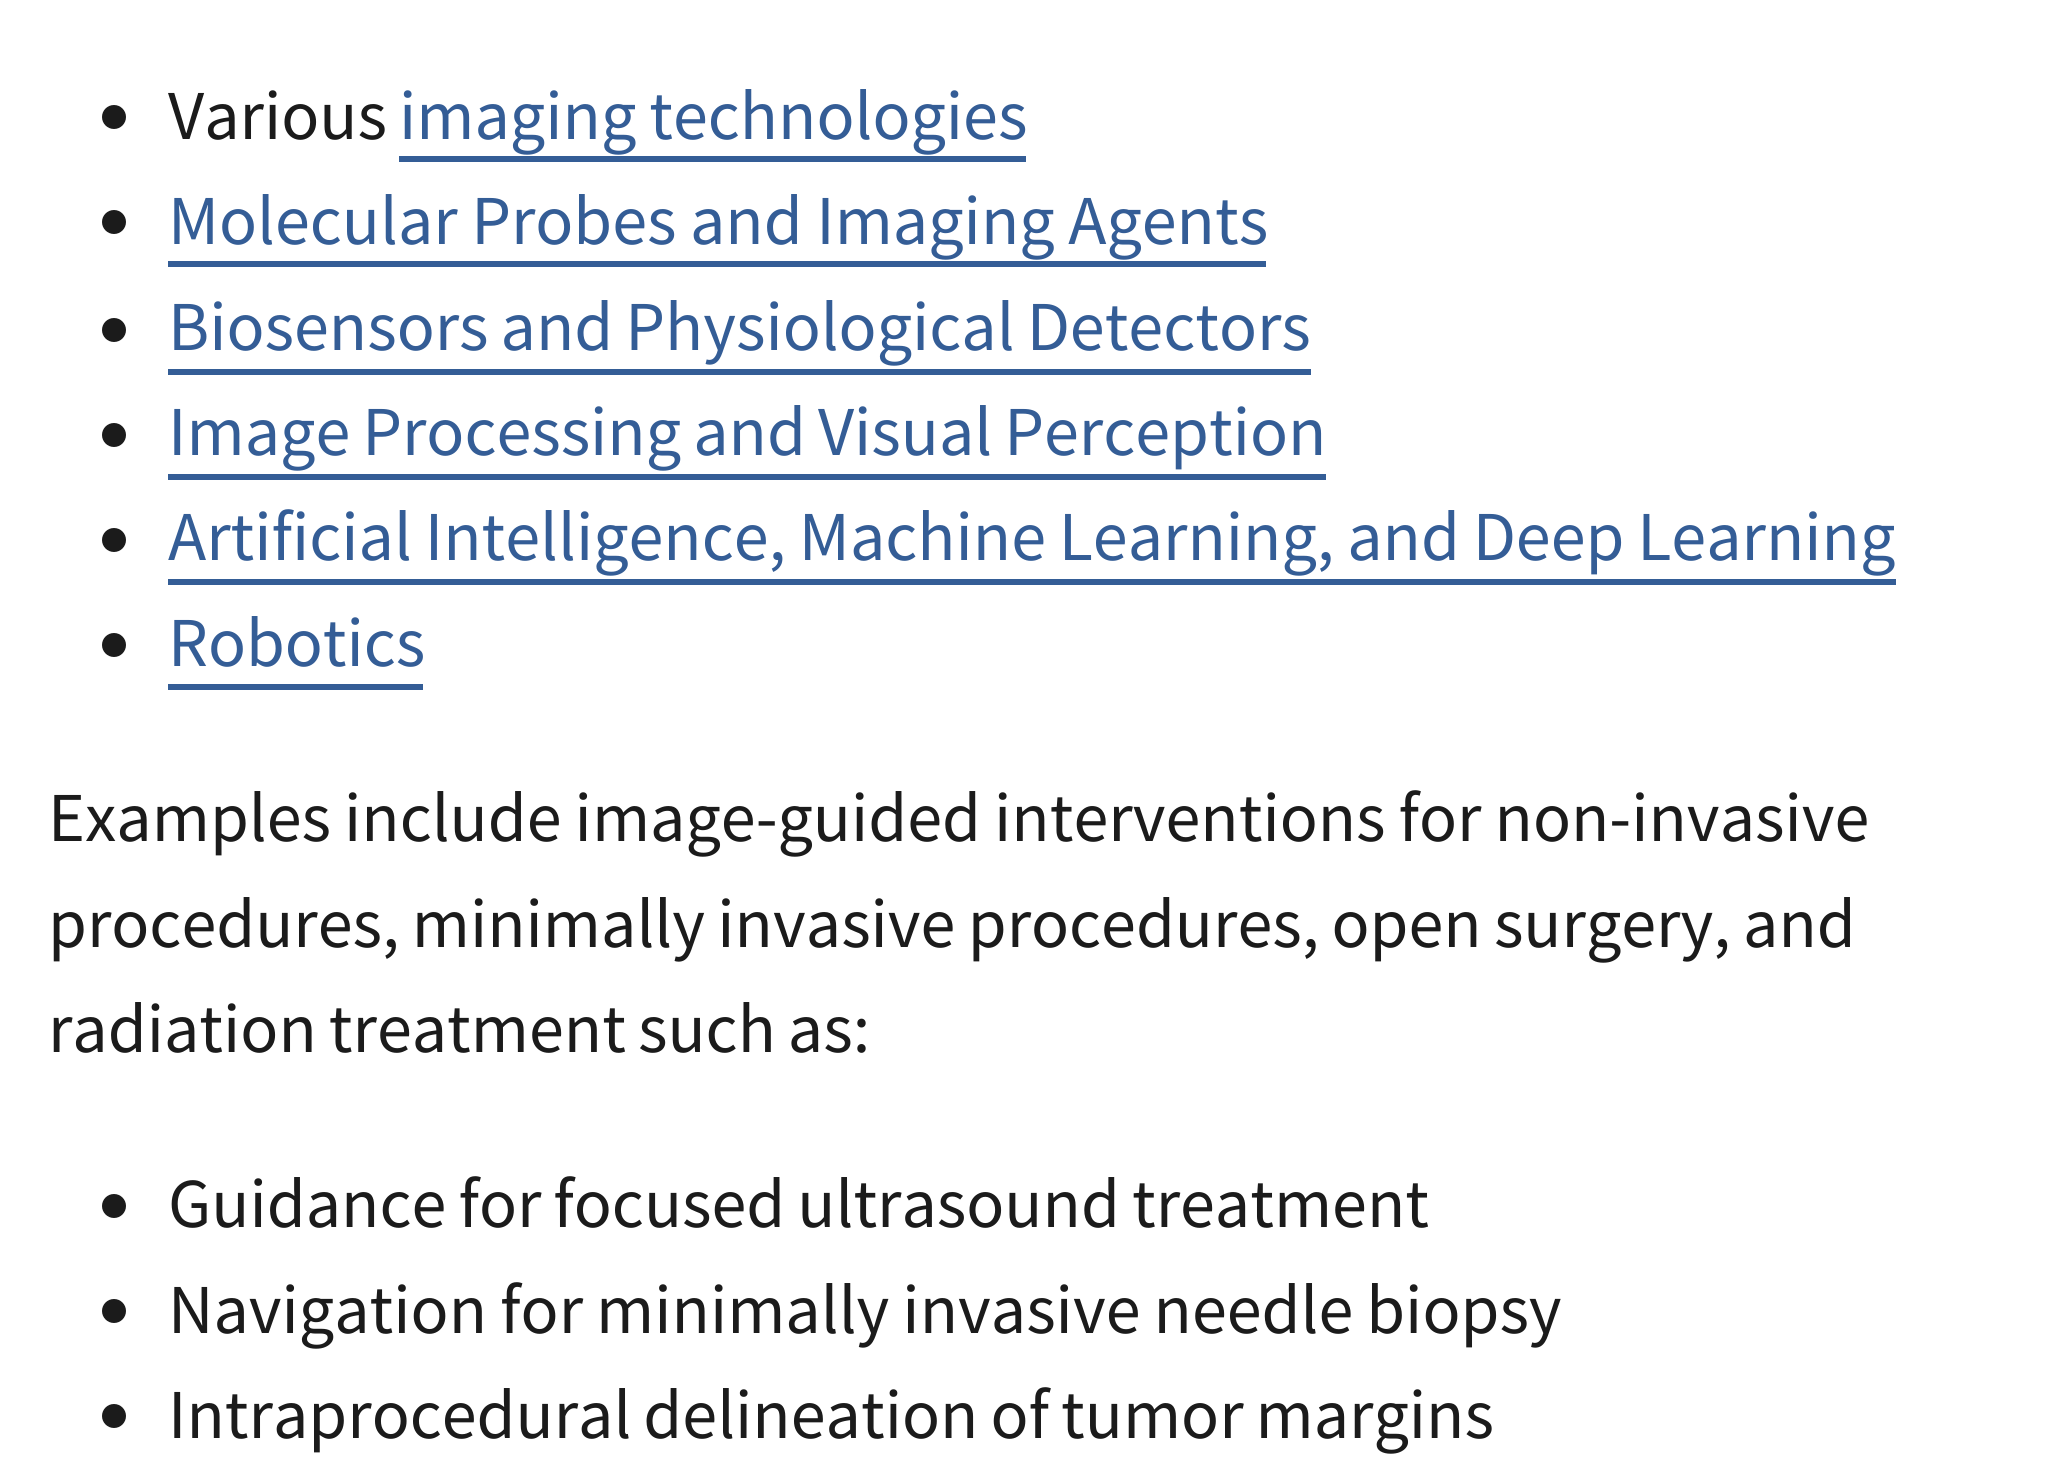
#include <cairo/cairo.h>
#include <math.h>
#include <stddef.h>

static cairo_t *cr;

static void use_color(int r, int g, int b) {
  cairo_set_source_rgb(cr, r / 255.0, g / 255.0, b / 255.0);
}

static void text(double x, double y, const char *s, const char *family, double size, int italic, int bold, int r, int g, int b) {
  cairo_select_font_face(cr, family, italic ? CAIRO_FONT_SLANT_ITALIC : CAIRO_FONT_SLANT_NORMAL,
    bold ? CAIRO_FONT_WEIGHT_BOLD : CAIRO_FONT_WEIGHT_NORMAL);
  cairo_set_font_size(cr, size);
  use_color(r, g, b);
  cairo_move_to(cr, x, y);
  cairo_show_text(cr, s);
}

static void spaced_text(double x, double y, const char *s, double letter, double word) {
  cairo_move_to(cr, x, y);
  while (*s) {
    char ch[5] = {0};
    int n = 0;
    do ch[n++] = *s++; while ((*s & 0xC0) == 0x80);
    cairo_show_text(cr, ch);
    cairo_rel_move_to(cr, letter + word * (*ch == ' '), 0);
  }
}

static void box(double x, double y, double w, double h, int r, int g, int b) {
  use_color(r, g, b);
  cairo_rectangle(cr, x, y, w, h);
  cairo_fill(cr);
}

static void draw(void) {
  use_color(255, 255, 255);
  cairo_paint(cr);
  use_color(27, 27, 27);
  cairo_arc(cr, 114, 117, 12, 0, 2 * M_PI);
  cairo_fill(cr);
  box(399, 156, 627, 6, 52, 93, 150);
  use_color(27, 27, 27);
  cairo_arc(cr, 114, 222, 12, 0, 2 * M_PI);
  cairo_fill(cr);
  box(168, 261, 1098, 6, 52, 93, 150);
  use_color(27, 27, 27);
  cairo_arc(cr, 114, 330, 12, 0, 2 * M_PI);
  cairo_fill(cr);
  box(168, 369, 1143, 6, 52, 93, 150);
  use_color(27, 27, 27);
  cairo_arc(cr, 114, 435, 12, 0, 2 * M_PI);
  cairo_fill(cr);
  box(168, 474, 1158, 6, 52, 93, 150);
  use_color(27, 27, 27);
  cairo_arc(cr, 114, 540, 12, 0, 2 * M_PI);
  cairo_fill(cr);
  box(168, 579, 1728, 6, 52, 93, 150);
  use_color(27, 27, 27);
  cairo_arc(cr, 114, 645, 12, 0, 2 * M_PI);
  cairo_fill(cr);
  box(168, 684, 255, 6, 52, 93, 150);
  use_color(27, 27, 27);
  cairo_arc(cr, 114, 1206, 12, 0, 2 * M_PI);
  cairo_fill(cr);
  cairo_arc(cr, 114, 1311, 12, 0, 2 * M_PI);
  cairo_fill(cr);
  cairo_arc(cr, 114, 1416, 12, 0, 2 * M_PI);
  cairo_fill(cr);
  text(168, 139, "Various", "Source Sans Pro", 70.2, 0, 0, 27, 27, 27);
  use_color(52, 93, 150);
  spaced_text(399, 139, "imaging technologies", 0, -1);
  spaced_text(168, 244, "Molecular Probes and Imaging Agents", 0, -0.5);
  spaced_text(168, 350, "Biosensors and Physiological Detectors", 0, -2);
  spaced_text(168, 455, "Image Processing and Visual Perception", 0, -2);
  spaced_text(168, 560, "Artificial Intelligence, Machine Learning, and Deep Learning", 0, -1.25);
  text(168, 666, "Robotics", "Source Sans Pro", 70.2, 0, 0, 52, 93, 150);
  use_color(27, 27, 27);
  spaced_text(48, 841, "Examples include image-guided interventions for non-invasive", 0, -1);
  spaced_text(48, 947, "procedures, minimally invasive procedures, open surgery, and", 0, -1.75);
  spaced_text(48, 1052, "radiation treatment such as:", 0, -2);
  spaced_text(168, 1227, "Guidance for focused ultrasound treatment", 0, -2);
  spaced_text(168, 1333, "Navigation for minimally invasive needle biopsy", 0, -1);
  spaced_text(168, 1438, "Intraprocedural delineation of tumor margins", 0, -2);
}

int main(void) {
  cairo_surface_t *surface = cairo_image_surface_create(CAIRO_FORMAT_RGB24, 2064, 1467);
  cr = cairo_create(surface);
  cairo_font_options_t *options = cairo_font_options_create();
  cairo_font_options_set_hint_metrics(options, CAIRO_HINT_METRICS_OFF);
  cairo_font_options_set_hint_style(options, CAIRO_HINT_STYLE_NONE);
  cairo_set_font_options(cr, options);
  cairo_set_miter_limit(cr, 4);
  draw();
  cairo_surface_write_to_png(surface, "out.png");
  cairo_font_options_destroy(options);
  cairo_destroy(cr);
  cairo_surface_destroy(surface);
  return 0;
}
